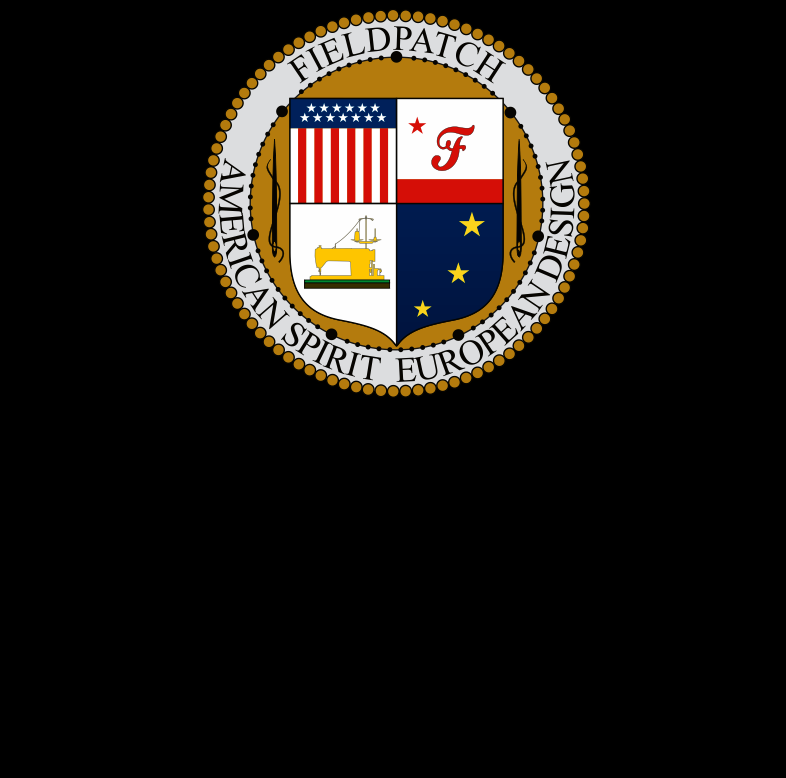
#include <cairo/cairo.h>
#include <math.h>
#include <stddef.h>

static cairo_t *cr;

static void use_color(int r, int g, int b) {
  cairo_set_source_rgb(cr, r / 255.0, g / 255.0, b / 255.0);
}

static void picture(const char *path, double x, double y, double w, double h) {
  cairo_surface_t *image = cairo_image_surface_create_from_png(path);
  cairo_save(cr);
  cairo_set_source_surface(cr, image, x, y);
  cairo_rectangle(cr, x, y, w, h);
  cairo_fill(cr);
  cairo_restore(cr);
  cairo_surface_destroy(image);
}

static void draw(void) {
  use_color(0, 0, 0);
  cairo_paint(cr);
  picture("img_01.png", 202, 9, 389, 389);
}

int main(void) {
  cairo_surface_t *surface = cairo_image_surface_create(CAIRO_FORMAT_RGB24, 786, 778);
  cr = cairo_create(surface);
  cairo_font_options_t *options = cairo_font_options_create();
  cairo_font_options_set_hint_metrics(options, CAIRO_HINT_METRICS_OFF);
  cairo_font_options_set_hint_style(options, CAIRO_HINT_STYLE_NONE);
  cairo_set_font_options(cr, options);
  cairo_set_miter_limit(cr, 4);
  draw();
  cairo_surface_write_to_png(surface, "out.png");
  cairo_font_options_destroy(options);
  cairo_destroy(cr);
  cairo_surface_destroy(surface);
  return 0;
}
